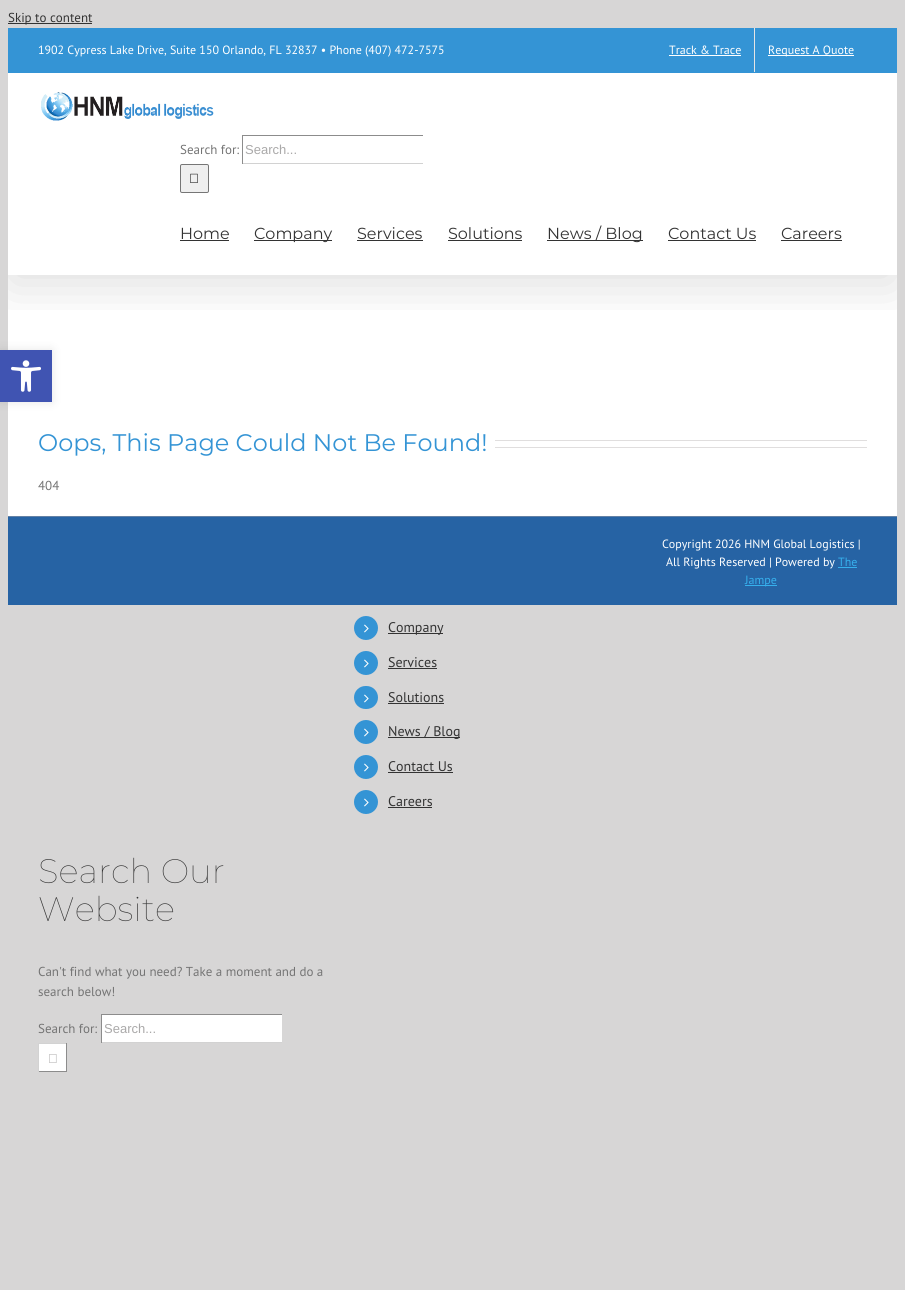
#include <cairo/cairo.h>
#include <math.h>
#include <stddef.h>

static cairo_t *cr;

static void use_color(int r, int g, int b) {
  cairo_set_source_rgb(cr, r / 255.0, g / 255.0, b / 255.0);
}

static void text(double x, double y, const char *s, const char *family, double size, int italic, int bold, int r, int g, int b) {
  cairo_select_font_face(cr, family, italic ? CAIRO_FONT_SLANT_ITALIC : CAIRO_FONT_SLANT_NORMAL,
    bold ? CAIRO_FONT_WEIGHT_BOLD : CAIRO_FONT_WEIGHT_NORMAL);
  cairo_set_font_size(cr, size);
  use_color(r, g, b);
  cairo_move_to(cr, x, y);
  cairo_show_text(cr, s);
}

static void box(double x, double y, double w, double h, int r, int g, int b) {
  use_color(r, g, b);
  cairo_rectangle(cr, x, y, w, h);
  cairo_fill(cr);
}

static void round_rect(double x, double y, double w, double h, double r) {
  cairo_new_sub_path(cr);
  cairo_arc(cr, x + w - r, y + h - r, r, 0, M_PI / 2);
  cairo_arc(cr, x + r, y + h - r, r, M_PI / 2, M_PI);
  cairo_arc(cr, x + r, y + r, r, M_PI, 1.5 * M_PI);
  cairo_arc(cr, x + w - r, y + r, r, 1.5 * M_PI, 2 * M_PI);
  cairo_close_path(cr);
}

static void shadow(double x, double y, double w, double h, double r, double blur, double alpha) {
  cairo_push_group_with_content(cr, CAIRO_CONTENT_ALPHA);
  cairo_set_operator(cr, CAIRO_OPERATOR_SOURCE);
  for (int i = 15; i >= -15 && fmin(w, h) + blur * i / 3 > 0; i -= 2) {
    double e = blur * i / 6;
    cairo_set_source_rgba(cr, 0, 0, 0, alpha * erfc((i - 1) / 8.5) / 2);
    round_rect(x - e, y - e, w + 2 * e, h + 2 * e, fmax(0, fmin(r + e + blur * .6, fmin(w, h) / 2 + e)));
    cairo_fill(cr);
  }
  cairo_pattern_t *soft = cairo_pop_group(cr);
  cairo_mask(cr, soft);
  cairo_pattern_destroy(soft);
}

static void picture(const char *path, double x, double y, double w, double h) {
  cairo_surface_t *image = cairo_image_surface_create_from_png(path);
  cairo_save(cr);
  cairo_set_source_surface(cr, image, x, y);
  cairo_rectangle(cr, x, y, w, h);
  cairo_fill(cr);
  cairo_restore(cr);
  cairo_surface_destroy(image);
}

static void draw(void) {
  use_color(215, 214, 214);
  cairo_paint(cr);
  box(8, 23, 84, 1, 51, 51, 51);
  box(8, 73, 889, 443, 255, 255, 255);
  use_color(0, 0, 0);
  shadow(0, 350, 52, 52, 0, 5, 0.1);
  box(0, 350, 52, 52, 64, 84, 178);
  picture("img_01.png", 11, 360, 30, 32);
  cairo_save(cr);
  cairo_rectangle(cr, 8, 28, 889, 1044);
  cairo_clip(cr);
  cairo_rectangle(cr, 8, 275, 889, 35);
  cairo_clip(cr);
  use_color(0, 0, 0);
  shadow(10, 40, 885, 243, 0, 25, 0.14);
  cairo_restore(cr);
  box(8, 28, 889, 45, 52, 148, 213);
  box(669, 55, 72, 1, 255, 255, 255);
  box(754, 28, 1, 44, 229, 229, 229);
  box(768, 55, 86, 1, 255, 255, 255);
  picture("img_02.png", 41, 92, 173, 29);
  box(242, 135, 181, 1, 140, 140, 140);
  box(242, 163, 181, 1, 210, 210, 210);
  box(242, 135, 1, 29, 140, 140, 140);
  use_color(239, 239, 239);
  round_rect(180.5, 164.5, 28, 28, 1.5);
  cairo_fill_preserve(cr);
  use_color(118, 118, 118);
  cairo_set_line_width(cr, 1);
  cairo_stroke(cr);
  picture("img_03.png", 190, 173, 8, 10);
  box(180, 240, 49, 1, 51, 51, 51);
  box(254, 240, 78, 1, 51, 51, 51);
  box(357, 240, 66, 1, 51, 51, 51);
  box(448, 240, 74, 1, 51, 51, 51);
  box(547, 240, 96, 1, 51, 51, 51);
  box(668, 240, 88, 1, 51, 51, 51);
  box(781, 240, 61, 1, 51, 51, 51);
  box(495, 440, 372, 1, 224, 222, 222);
  box(495, 447, 372, 1, 224, 222, 222);
  use_color(52, 148, 213);
  cairo_arc(cr, 366, 628, 12, 0, 2 * M_PI);
  cairo_fill(cr);
  picture("img_04.png", 364, 624, 5, 9);
  box(388, 633, 55, 1, 51, 51, 51);
  use_color(52, 148, 213);
  cairo_arc(cr, 366, 663, 12, 0, 2 * M_PI);
  cairo_fill(cr);
  picture("img_04.png", 364, 659, 5, 9);
  box(388, 668, 49, 1, 51, 51, 51);
  use_color(52, 148, 213);
  round_rect(354, 686, 24, 23, 11.5);
  cairo_fill(cr);
  picture("img_04.png", 364, 694, 5, 9);
  box(388, 703, 56, 1, 51, 51, 51);
  use_color(52, 148, 213);
  cairo_arc(cr, 366, 732, 12, 0, 2 * M_PI);
  cairo_fill(cr);
  picture("img_04.png", 364, 728, 5, 9);
  box(388, 737, 72, 1, 51, 51, 51);
  use_color(52, 148, 213);
  cairo_arc(cr, 366, 767, 12, 0, 2 * M_PI);
  cairo_fill(cr);
  picture("img_04.png", 364, 763, 5, 9);
  box(388, 772, 65, 1, 51, 51, 51);
  use_color(52, 148, 213);
  cairo_arc(cr, 366, 802, 12, 0, 2 * M_PI);
  cairo_fill(cr);
  picture("img_04.png", 364, 798, 5, 9);
  box(388, 807, 44, 1, 51, 51, 51);
  box(102, 1015, 180, 27, 255, 255, 255);
  box(101, 1014, 181, 1, 140, 140, 140);
  box(101, 1042, 181, 1, 210, 210, 210);
  box(101, 1014, 1, 29, 140, 140, 140);
  box(39, 1044, 27, 27, 255, 255, 255);
  box(38, 1043, 29, 1, 210, 210, 210);
  box(66, 1043, 1, 29, 140, 140, 140);
  box(38, 1071, 29, 1, 140, 140, 140);
  box(38, 1043, 1, 29, 210, 210, 210);
  picture("img_05.png", 49, 1054, 8, 9);
  box(8, 517, 889, 88, 38, 99, 164);
  box(8, 516, 889, 1, 99, 129, 165);
  box(838, 567, 19, 1, 54, 176, 237);
  box(745, 585, 32, 1, 54, 176, 237);
  text(8, 22, "Skip to content", "PT Sans", 13, 0, 0, 51, 51, 51);
  text(38, 54, "1902 Cypress Lake Drive, Suite 150 Orlando, FL 32837 • Phone (407) 472-7575", "PT Sans", 12, 0, 0, 255, 255, 255);
  text(669, 54, "Track & Trace", "PT Sans", 12, 0, 0, 255, 255, 255);
  text(768, 54, "Request A Quote", "PT Sans", 12, 0, 0, 255, 255, 255);
  text(180, 154, "Search for:", "PT Sans", 13, 0, 0, 116, 116, 116);
  text(245, 154, "Search...", "Liberation Sans", 13, 0, 0, 170, 169, 169);
  text(180, 239, "Home", "Montserrat", 16, 0, 0, 51, 51, 51);
  text(254, 239, "Company", "Montserrat", 16, 0, 0, 51, 51, 51);
  text(357, 239, "Services", "Montserrat", 16, 0, 0, 51, 51, 51);
  text(448, 239, "Solutions", "Montserrat", 16, 0, 0, 51, 51, 51);
  text(547, 239, "News / Blog", "Montserrat", 16, 0, 0, 51, 51, 51);
  text(668, 239, "Contact Us", "Montserrat", 16, 0, 0, 51, 51, 51);
  text(781, 239, "Careers", "Montserrat", 16, 0, 0, 51, 51, 51);
  text(38, 451, "Oops, This Page Could Not Be Found!", "Montserrat", 24, 0, 0, 52, 148, 213);
  text(38, 490, "404", "PT Sans", 13, 0, 0, 116, 116, 116);
  text(388, 632, "Company", "PT Sans", 14, 0, 0, 51, 51, 51);
  text(388, 667, "Services", "PT Sans", 14, 0, 0, 51, 51, 51);
  text(388, 702, "Solutions", "PT Sans", 14, 0, 0, 51, 51, 51);
  text(388, 736, "News / Blog", "PT Sans", 14, 0, 0, 51, 51, 51);
  text(388, 771, "Contact Us", "PT Sans", 14, 0, 0, 51, 51, 51);
  text(388, 806, "Careers", "PT Sans", 14, 0, 0, 51, 51, 51);
  text(38, 883, "Search Our", "Montserrat Thin", 34, 0, 0, 51, 51, 51);
  text(38, 921, "Website", "Montserrat Thin", 34, 0, 0, 51, 51, 51);
  text(38, 976, "Can't find what you need? Take a moment and do a", "PT Sans", 13, 0, 0, 116, 116, 116);
  text(38, 996, "search below!", "PT Sans", 13, 0, 0, 116, 116, 116);
  text(38, 1033, "Search for:", "PT Sans", 13, 0, 0, 116, 116, 116);
  text(104, 1033, "Search...", "Liberation Sans", 13, 0, 0, 170, 169, 169);
  text(662, 548, "Copyright 2026 HNM Global Logistics |", "PT Sans", 12, 0, 0, 255, 255, 255);
  text(666, 566, "All Rights Reserved | Powered by", "PT Sans", 12, 0, 0, 255, 255, 255);
  text(838, 566, "The", "PT Sans", 12, 0, 0, 54, 176, 237);
  text(745, 584, "Jampe", "PT Sans", 12, 0, 0, 54, 176, 237);
}

int main(void) {
  cairo_surface_t *surface = cairo_image_surface_create(CAIRO_FORMAT_RGB24, 905, 1290);
  cr = cairo_create(surface);
  cairo_font_options_t *options = cairo_font_options_create();
  cairo_font_options_set_hint_metrics(options, CAIRO_HINT_METRICS_OFF);
  cairo_font_options_set_hint_style(options, CAIRO_HINT_STYLE_NONE);
  cairo_set_font_options(cr, options);
  cairo_set_miter_limit(cr, 4);
  draw();
  cairo_surface_write_to_png(surface, "out.png");
  cairo_font_options_destroy(options);
  cairo_destroy(cr);
  cairo_surface_destroy(surface);
  return 0;
}
